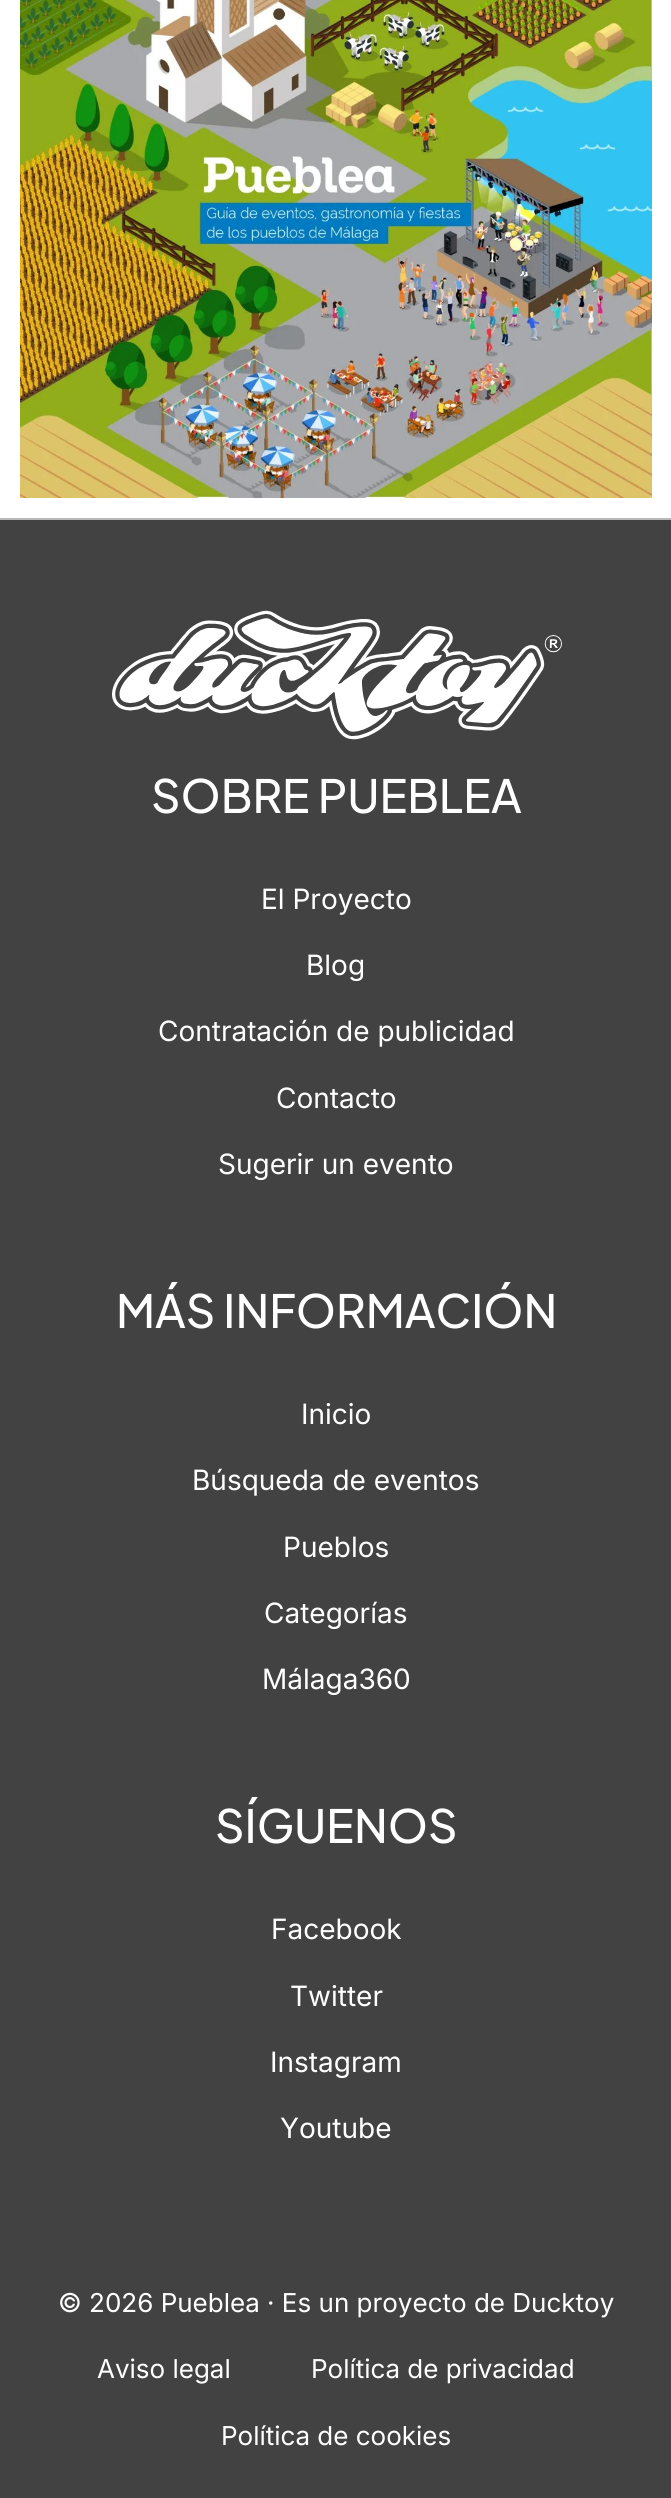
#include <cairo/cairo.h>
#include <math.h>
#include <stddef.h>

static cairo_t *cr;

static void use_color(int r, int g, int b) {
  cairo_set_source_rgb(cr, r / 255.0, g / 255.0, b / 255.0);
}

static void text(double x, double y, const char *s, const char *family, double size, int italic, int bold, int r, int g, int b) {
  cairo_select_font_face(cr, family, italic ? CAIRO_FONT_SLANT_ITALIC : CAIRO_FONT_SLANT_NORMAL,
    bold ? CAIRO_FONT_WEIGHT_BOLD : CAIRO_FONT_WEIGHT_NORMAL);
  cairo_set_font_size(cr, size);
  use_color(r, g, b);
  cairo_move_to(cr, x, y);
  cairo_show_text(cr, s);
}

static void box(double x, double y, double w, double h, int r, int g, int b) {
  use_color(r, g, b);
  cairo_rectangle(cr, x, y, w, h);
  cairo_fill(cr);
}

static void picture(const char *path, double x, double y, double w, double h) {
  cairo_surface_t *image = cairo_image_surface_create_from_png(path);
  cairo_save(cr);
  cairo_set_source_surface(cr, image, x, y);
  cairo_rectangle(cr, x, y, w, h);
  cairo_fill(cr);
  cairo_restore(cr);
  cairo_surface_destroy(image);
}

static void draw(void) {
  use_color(255, 255, 255);
  cairo_paint(cr);
  picture("img_01.png", 20, 0, 632, 498);
  box(0, 520, 671, 1978, 66, 66, 66);
  box(0, 518, 671, 2, 183, 183, 183);
  picture("img_02.png", 112, 610, 450, 130);
  text(151, 813, "SOBRE PUEBLEA", "Plus Jakarta Sans Medium", 45.75, 0, 0, 255, 255, 255);
  text(261, 909, "El Proyecto", "Inter", 28, 0, 0, 255, 255, 255);
  text(306, 975, "Blog", "Inter", 28, 0, 0, 255, 255, 255);
  text(158, 1041, "Contratación de publicidad", "Inter", 28, 0, 0, 255, 255, 255);
  text(276, 1108, "Contacto", "Inter", 28, 0, 0, 255, 255, 255);
  text(218, 1174, "Sugerir un evento", "Inter", 28, 0, 0, 255, 255, 255);
  text(116, 1328, "MÁS INFORMACIÓN", "Plus Jakarta Sans Medium", 45.75, 0, 0, 255, 255, 255);
  text(301, 1424, "Inicio", "Inter", 28, 0, 0, 255, 255, 255);
  text(192, 1490, "Búsqueda de eventos", "Inter", 28, 0, 0, 255, 255, 255);
  text(283, 1557, "Pueblos", "Inter", 28, 0, 0, 255, 255, 255);
  text(264, 1623, "Categorías", "Inter", 28, 0, 0, 255, 255, 255);
  text(262, 1689, "Málaga360", "Inter", 28, 0, 0, 255, 255, 255);
  text(215, 1843, "SÍGUENOS", "Plus Jakarta Sans Medium", 45.75, 0, 0, 255, 255, 255);
  text(271, 1939, "Facebook", "Inter", 28, 0, 0, 255, 255, 255);
  text(290, 2006, "Twitter", "Inter", 28, 0, 0, 255, 255, 255);
  text(270, 2072, "Instagram", "Inter", 28, 0, 0, 255, 255, 255);
  text(280, 2138, "Youtube", "Inter", 28, 0, 0, 255, 255, 255);
  text(58, 2312, "© 2026 Pueblea · Es un proyecto de Ducktoy", "Inter", 26, 0, 0, 255, 255, 255);
  text(97, 2378, "Aviso legal", "Inter", 26, 0, 0, 255, 255, 255);
  text(311, 2378, "Política de privacidad", "Inter", 26, 0, 0, 255, 255, 255);
  text(221, 2445, "Política de cookies", "Inter", 26, 0, 0, 255, 255, 255);
}

int main(void) {
  cairo_surface_t *surface = cairo_image_surface_create(CAIRO_FORMAT_RGB24, 671, 2498);
  cr = cairo_create(surface);
  cairo_font_options_t *options = cairo_font_options_create();
  cairo_font_options_set_hint_metrics(options, CAIRO_HINT_METRICS_OFF);
  cairo_font_options_set_hint_style(options, CAIRO_HINT_STYLE_NONE);
  cairo_set_font_options(cr, options);
  cairo_set_miter_limit(cr, 4);
  draw();
  cairo_surface_write_to_png(surface, "out.png");
  cairo_font_options_destroy(options);
  cairo_destroy(cr);
  cairo_surface_destroy(surface);
  return 0;
}
